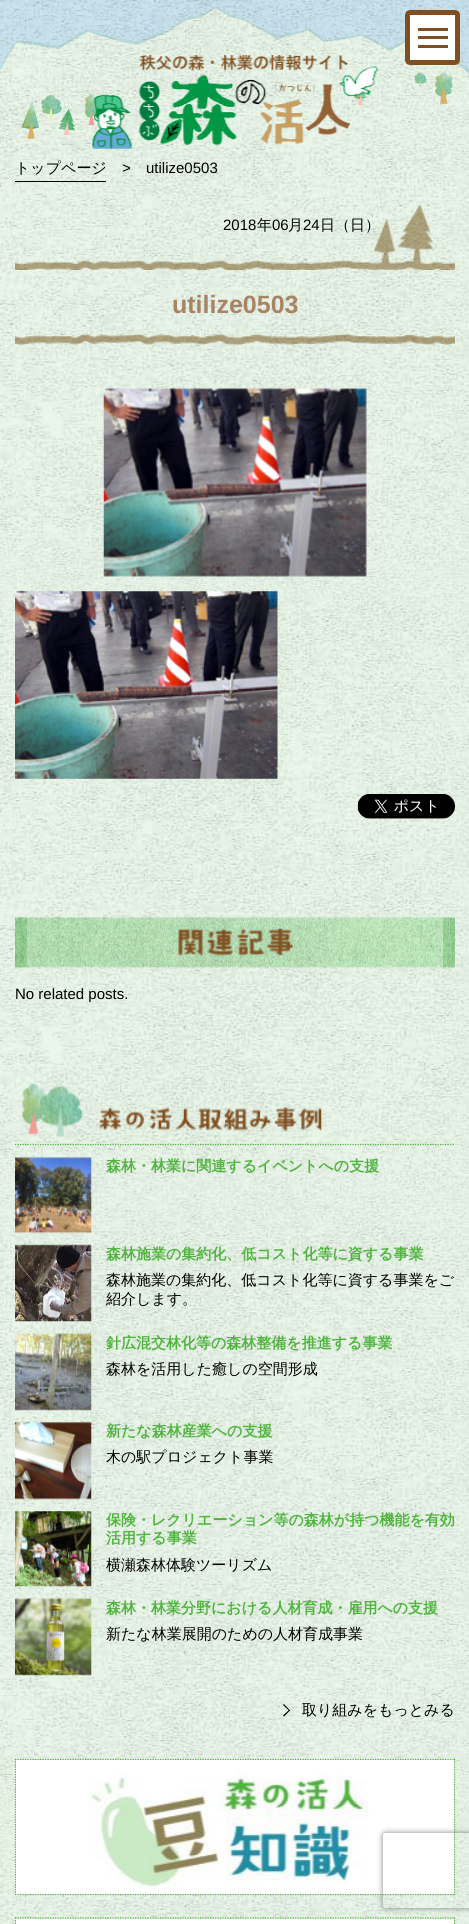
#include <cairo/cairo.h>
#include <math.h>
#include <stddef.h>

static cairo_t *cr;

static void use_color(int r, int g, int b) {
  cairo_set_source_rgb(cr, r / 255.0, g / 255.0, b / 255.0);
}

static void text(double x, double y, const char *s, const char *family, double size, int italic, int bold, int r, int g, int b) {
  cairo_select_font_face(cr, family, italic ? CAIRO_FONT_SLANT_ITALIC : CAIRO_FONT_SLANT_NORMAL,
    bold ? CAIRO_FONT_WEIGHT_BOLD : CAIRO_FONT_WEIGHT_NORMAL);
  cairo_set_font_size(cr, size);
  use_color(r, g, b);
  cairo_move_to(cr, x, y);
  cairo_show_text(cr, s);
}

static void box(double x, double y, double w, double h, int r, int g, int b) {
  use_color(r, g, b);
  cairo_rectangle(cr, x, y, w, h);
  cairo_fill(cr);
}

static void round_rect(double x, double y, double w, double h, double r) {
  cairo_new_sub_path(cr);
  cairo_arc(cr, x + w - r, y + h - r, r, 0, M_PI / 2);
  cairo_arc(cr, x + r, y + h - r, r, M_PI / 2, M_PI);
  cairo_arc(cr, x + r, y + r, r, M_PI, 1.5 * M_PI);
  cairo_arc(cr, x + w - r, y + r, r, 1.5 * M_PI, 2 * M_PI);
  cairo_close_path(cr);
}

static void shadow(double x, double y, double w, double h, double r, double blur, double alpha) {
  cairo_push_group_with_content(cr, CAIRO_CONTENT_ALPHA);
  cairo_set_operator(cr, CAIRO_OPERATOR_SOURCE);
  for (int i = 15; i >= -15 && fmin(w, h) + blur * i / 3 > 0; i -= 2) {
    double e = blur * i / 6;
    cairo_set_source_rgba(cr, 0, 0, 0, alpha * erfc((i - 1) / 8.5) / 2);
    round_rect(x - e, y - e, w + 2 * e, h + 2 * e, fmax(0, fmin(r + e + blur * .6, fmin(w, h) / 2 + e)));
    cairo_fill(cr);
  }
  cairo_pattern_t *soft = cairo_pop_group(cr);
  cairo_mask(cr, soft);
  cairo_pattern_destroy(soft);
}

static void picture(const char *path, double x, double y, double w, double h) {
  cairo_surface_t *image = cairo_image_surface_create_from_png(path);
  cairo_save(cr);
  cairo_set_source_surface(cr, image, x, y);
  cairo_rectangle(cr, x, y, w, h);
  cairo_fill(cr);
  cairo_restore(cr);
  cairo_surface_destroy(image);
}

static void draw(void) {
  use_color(233, 246, 233);
  cairo_paint(cr);
  picture("img_01.png", 0, 0, 469, 1924);
  use_color(255, 255, 255);
  round_rect(407.5, 12.5, 50, 50, 2.5);
  cairo_fill_preserve(cr);
  use_color(128, 79, 33);
  cairo_set_line_width(cr, 5);
  cairo_stroke(cr);
  box(418, 36, 30, 3, 128, 79, 33);
  box(418, 28, 30, 3, 128, 79, 33);
  box(418, 45, 30, 3, 128, 79, 33);
  picture("img_02.png", 21, 72, 432, 67);
  picture("img_03.png", 92, 55, 287, 94);
  box(15, 181, 91, 1, 0, 0, 0);
  picture("img_04.png", 15, 205, 440, 65);
  picture("img_05.png", 15, 333, 440, 12);
  picture("img_06.png", 103, 388, 264, 189);
  picture("img_07.png", 15, 591, 263, 188);
  picture("img_08.png", 357, 794, 98, 25);
  picture("img_09.png", 15, 917, 440, 52);
  picture("img_10.png", 178, 928, 115, 28);
  cairo_new_path(cr);
  cairo_move_to(cr, 15, 1144.5);
  cairo_line_to(cr, 455, 1144.5);
  use_color(80, 180, 63);
  cairo_set_line_width(cr, 1.2);
  cairo_set_dash(cr, (double[]){1.25, 1.25}, 2, 0);
  cairo_stroke(cr);
  picture("img_11.png", 21, 1083, 301, 54);
  picture("img_12.png", 15, 1157, 77, 77);
  picture("img_13.png", 15, 1244, 77, 78);
  picture("img_14.png", 15, 1333, 77, 78);
  picture("img_15.png", 15, 1422, 77, 78);
  picture("img_16.png", 15, 1511, 77, 76);
  picture("img_17.png", 15, 1598, 77, 78);
  use_color(0, 0, 0);
  cairo_new_path(cr);
  cairo_move_to(cr, 284, 1704);
  cairo_line_to(cr, 290, 1710.5);
  cairo_line_to(cr, 289.5, 1711);
  cairo_line_to(cr, 283, 1705);
  cairo_close_path(cr);
  cairo_fill(cr);
  cairo_new_path(cr);
  cairo_move_to(cr, 289.5, 1709.5);
  cairo_line_to(cr, 290, 1710.5);
  cairo_line_to(cr, 284, 1716.5);
  cairo_line_to(cr, 283, 1715.5);
  cairo_close_path(cr);
  cairo_fill(cr);
  cairo_new_path(cr);
  cairo_move_to(cr, 15, 1759.5);
  cairo_line_to(cr, 455, 1759.5);
  use_color(80, 180, 63);
  cairo_stroke(cr);
  cairo_new_path(cr);
  cairo_move_to(cr, 454.5, 1759);
  cairo_line_to(cr, 454.5, 1895);
  cairo_stroke(cr);
  cairo_new_path(cr);
  cairo_move_to(cr, 15, 1894.5);
  cairo_line_to(cr, 455, 1894.5);
  cairo_stroke(cr);
  cairo_new_path(cr);
  cairo_move_to(cr, 15.5, 1759);
  cairo_line_to(cr, 15.5, 1895);
  cairo_stroke(cr);
  box(16, 1760, 438, 134, 255, 255, 255);
  picture("img_18.png", 88, 1771, 281, 118);
  cairo_new_path(cr);
  cairo_move_to(cr, 15, 1918);
  cairo_line_to(cr, 455, 1918);
  use_color(80, 180, 63);
  cairo_stroke(cr);
  cairo_new_path(cr);
  cairo_move_to(cr, 454.5, 1917.5);
  cairo_line_to(cr, 454.5, 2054);
  cairo_stroke(cr);
  cairo_new_path(cr);
  cairo_move_to(cr, 15.5, 1917.5);
  cairo_line_to(cr, 15.5, 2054);
  cairo_stroke(cr);
  box(16, 1919, 438, 5, 255, 255, 255);
  cairo_save(cr);
  cairo_set_fill_rule(cr, CAIRO_FILL_RULE_EVEN_ODD);
  cairo_new_path(cr);
  cairo_move_to(cr, 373, 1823);
  cairo_line_to(cr, 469, 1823);
  cairo_line_to(cr, 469, 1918);
  cairo_line_to(cr, 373, 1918);
  cairo_close_path(cr);
  cairo_move_to(cr, 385.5, 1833);
  cairo_line_to(cr, 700.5, 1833);
  cairo_curve_to(cr, 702, 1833, 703, 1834, 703, 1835.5);
  cairo_line_to(cr, 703, 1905.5);
  cairo_curve_to(cr, 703, 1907, 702, 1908, 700.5, 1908);
  cairo_line_to(cr, 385.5, 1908);
  cairo_curve_to(cr, 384, 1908, 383, 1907, 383, 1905.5);
  cairo_line_to(cr, 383, 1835.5);
  cairo_curve_to(cr, 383, 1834, 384, 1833, 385.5, 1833);
  cairo_close_path(cr);
  cairo_clip(cr);
  use_color(128, 128, 128);
  shadow(383, 1833, 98, 75, 2.5, 3, 1);
  cairo_restore(cr);
  text(15, 173, "トップページ", "WenQuanYi Zen Hei Medium", 15, 0, 0, 0, 0, 0);
  text(122, 173, ">", "Liberation Sans", 15, 0, 0, 0, 0, 0);
  text(146, 173, "utilize0503", "Liberation Sans", 15, 0, 0, 0, 0, 0);
  text(223, 230, "2018", "Liberation Sans", 15, 0, 0, 0, 0, 0);
  text(257, 230, "年", "WenQuanYi Zen Hei Medium", 15, 0, 0, 0, 0, 0);
  text(272, 230, "06", "Liberation Sans", 15, 0, 0, 0, 0, 0);
  text(288, 230, "月", "WenQuanYi Zen Hei Medium", 15, 0, 0, 0, 0, 0);
  text(303, 230, "24", "Liberation Sans", 15, 0, 0, 0, 0, 0);
  text(320, 230, "日（日）", "WenQuanYi Zen Hei Medium", 15, 0, 0, 0, 0, 0);
  text(172, 313, "utilize0503", "Liberation Sans", 25, 0, 1, 166, 132, 100);
  text(15, 999, "No related posts.", "Liberation Sans", 15, 0, 0, 0, 0, 0);
  text(106, 1171, "森林・林業に関連するイベントへの支援", "WenQuanYi Zen Hei", 15, 0, 1, 80, 180, 63);
  text(106, 1259, "森林施業の集約化、低コスト化等に資する事業", "WenQuanYi Zen Hei", 15, 0, 1, 80, 180, 63);
  text(106, 1285, "森林施業の集約化、低コスト化等に資する事業をご", "WenQuanYi Zen Hei Medium", 15, 0, 0, 0, 0, 0);
  text(106, 1304, "紹介します。", "WenQuanYi Zen Hei Medium", 15, 0, 0, 0, 0, 0);
  text(106, 1348, "針広混交林化等の森林整備を推進する事業", "WenQuanYi Zen Hei", 15, 0, 1, 80, 180, 63);
  text(106, 1374, "森林を活用した癒しの空間形成", "WenQuanYi Zen Hei Medium", 15, 0, 0, 0, 0, 0);
  text(106, 1436, "新たな森林産業への支援", "WenQuanYi Zen Hei", 15, 0, 1, 80, 180, 63);
  text(106, 1462, "木の駅プロジェクト事業", "WenQuanYi Zen Hei Medium", 15, 0, 0, 0, 0, 0);
  text(106, 1525, "保険・レクリエーション等の森林が持つ機能を有効", "WenQuanYi Zen Hei", 15, 0, 1, 80, 180, 63);
  text(106, 1543, "活用する事業", "WenQuanYi Zen Hei", 15, 0, 1, 80, 180, 63);
  text(106, 1570, "横瀬森林体験ツーリズム", "WenQuanYi Zen Hei Medium", 15, 0, 0, 0, 0, 0);
  text(106, 1613, "森林・林業分野における人材育成・雇用への支援", "WenQuanYi Zen Hei", 15, 0, 1, 80, 180, 63);
  text(106, 1639, "新たな林業展開のための人材育成事業", "WenQuanYi Zen Hei Medium", 15, 0, 0, 0, 0, 0);
  text(302, 1715, "取り組みをもっとみる", "WenQuanYi Zen Hei Medium", 15, 0, 0, 0, 0, 0);
}

int main(void) {
  cairo_surface_t *surface = cairo_image_surface_create(CAIRO_FORMAT_RGB24, 469, 1924);
  cr = cairo_create(surface);
  cairo_font_options_t *options = cairo_font_options_create();
  cairo_font_options_set_hint_metrics(options, CAIRO_HINT_METRICS_OFF);
  cairo_font_options_set_hint_style(options, CAIRO_HINT_STYLE_NONE);
  cairo_set_font_options(cr, options);
  cairo_set_miter_limit(cr, 4);
  draw();
  cairo_surface_write_to_png(surface, "out.png");
  cairo_font_options_destroy(options);
  cairo_destroy(cr);
  cairo_surface_destroy(surface);
  return 0;
}
